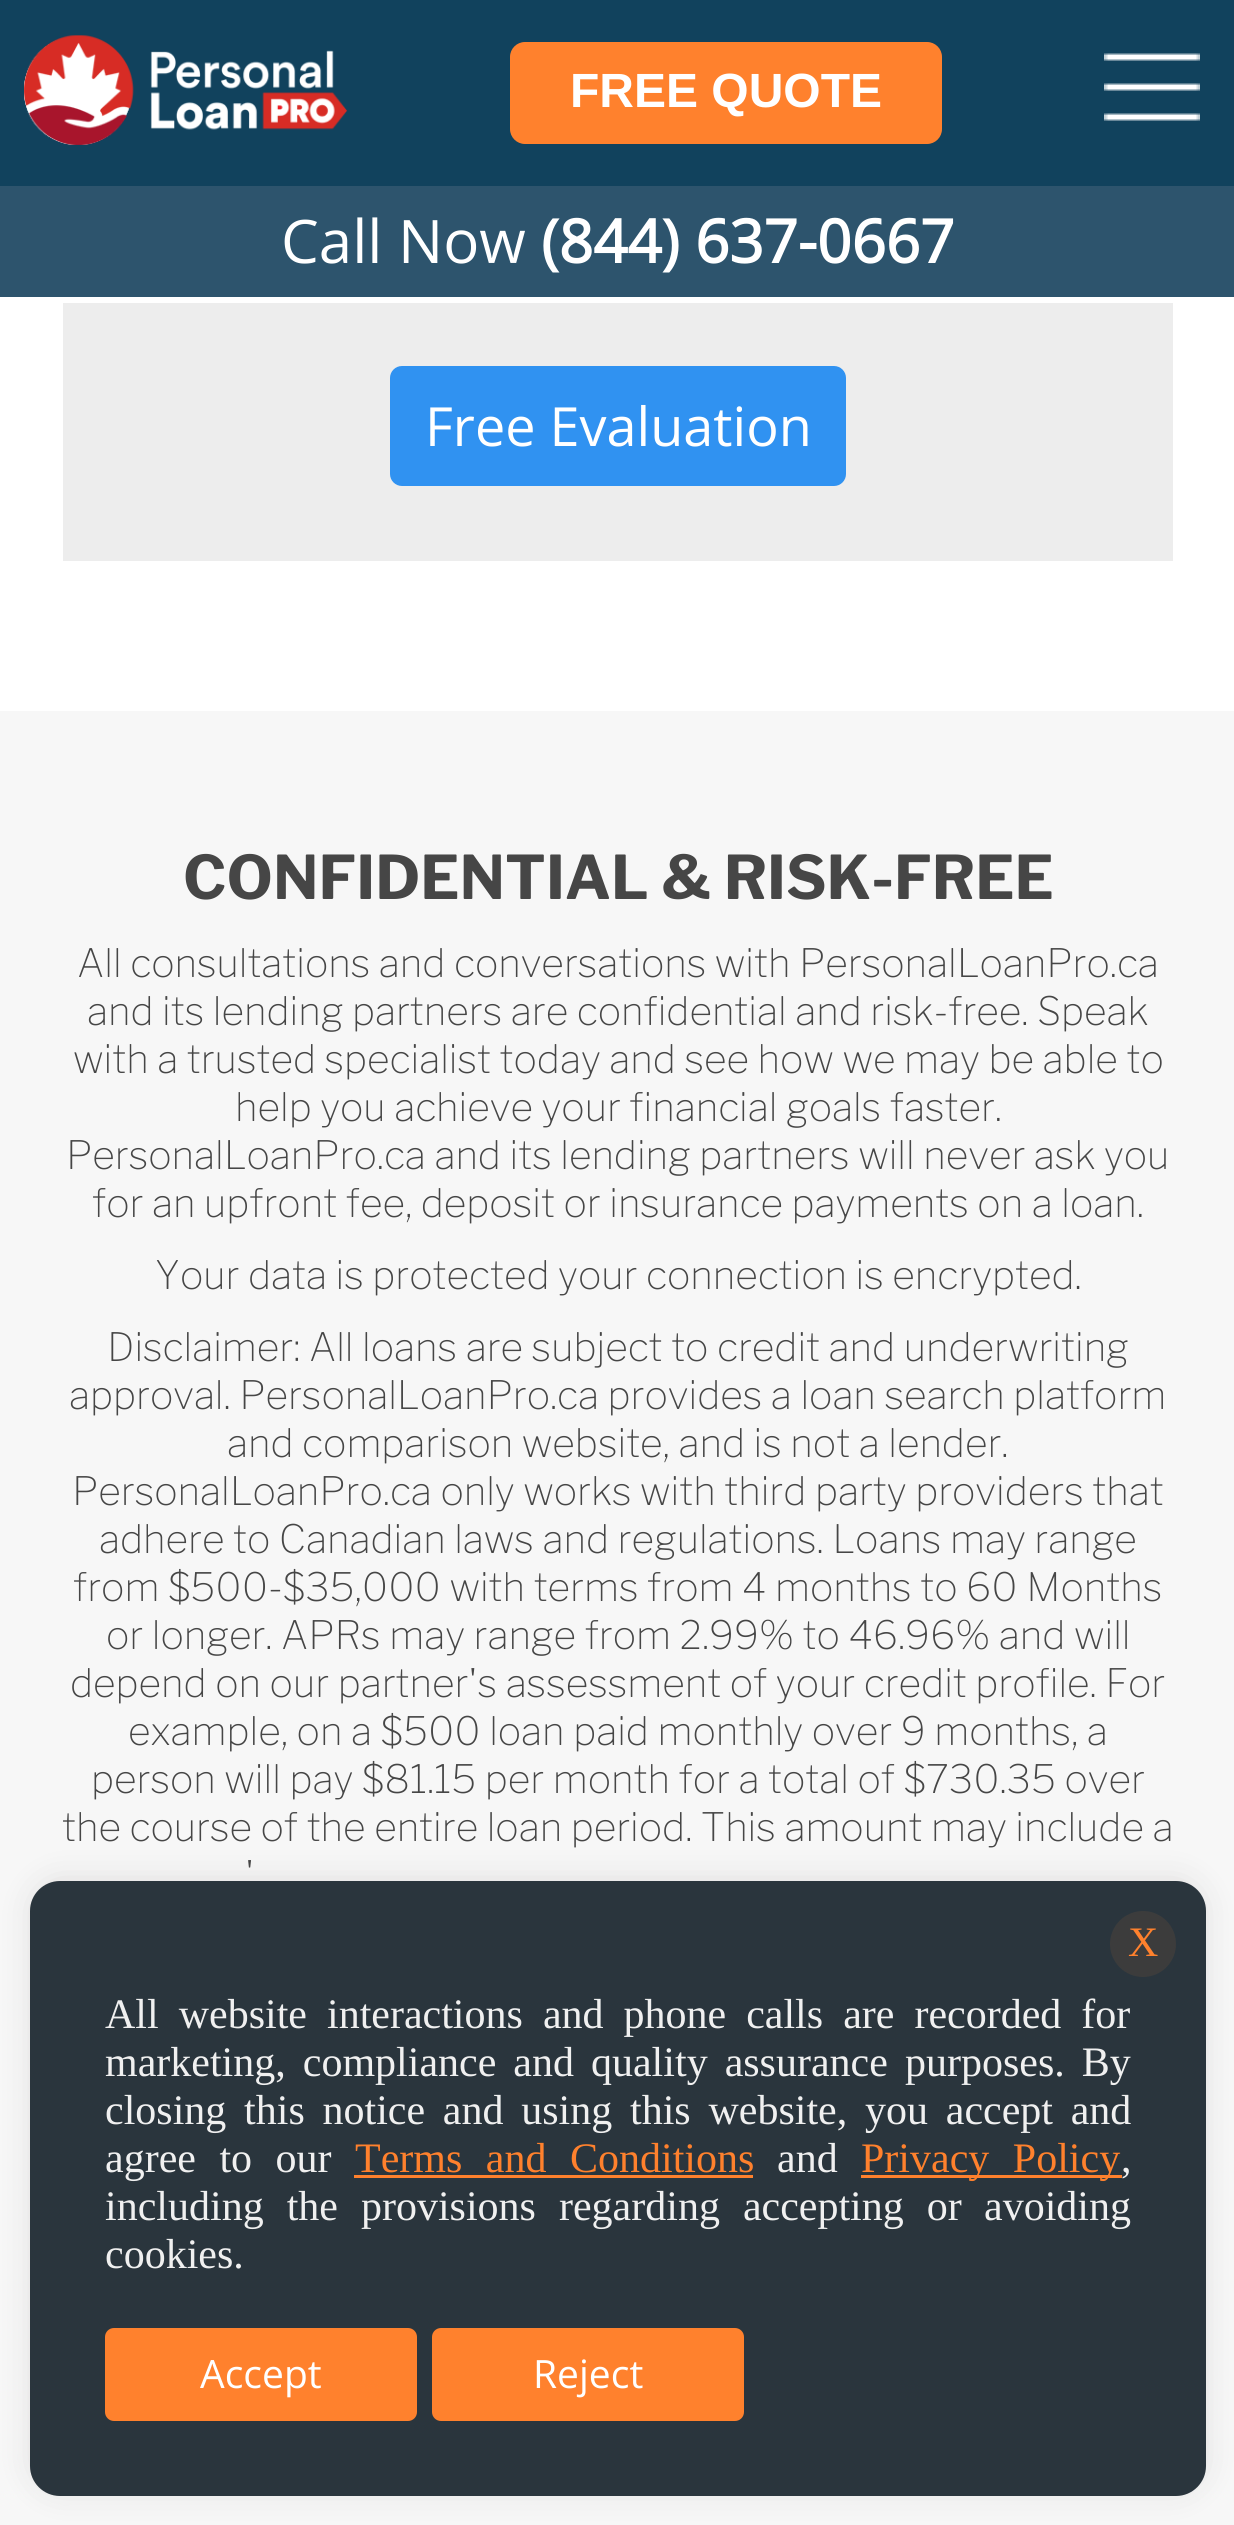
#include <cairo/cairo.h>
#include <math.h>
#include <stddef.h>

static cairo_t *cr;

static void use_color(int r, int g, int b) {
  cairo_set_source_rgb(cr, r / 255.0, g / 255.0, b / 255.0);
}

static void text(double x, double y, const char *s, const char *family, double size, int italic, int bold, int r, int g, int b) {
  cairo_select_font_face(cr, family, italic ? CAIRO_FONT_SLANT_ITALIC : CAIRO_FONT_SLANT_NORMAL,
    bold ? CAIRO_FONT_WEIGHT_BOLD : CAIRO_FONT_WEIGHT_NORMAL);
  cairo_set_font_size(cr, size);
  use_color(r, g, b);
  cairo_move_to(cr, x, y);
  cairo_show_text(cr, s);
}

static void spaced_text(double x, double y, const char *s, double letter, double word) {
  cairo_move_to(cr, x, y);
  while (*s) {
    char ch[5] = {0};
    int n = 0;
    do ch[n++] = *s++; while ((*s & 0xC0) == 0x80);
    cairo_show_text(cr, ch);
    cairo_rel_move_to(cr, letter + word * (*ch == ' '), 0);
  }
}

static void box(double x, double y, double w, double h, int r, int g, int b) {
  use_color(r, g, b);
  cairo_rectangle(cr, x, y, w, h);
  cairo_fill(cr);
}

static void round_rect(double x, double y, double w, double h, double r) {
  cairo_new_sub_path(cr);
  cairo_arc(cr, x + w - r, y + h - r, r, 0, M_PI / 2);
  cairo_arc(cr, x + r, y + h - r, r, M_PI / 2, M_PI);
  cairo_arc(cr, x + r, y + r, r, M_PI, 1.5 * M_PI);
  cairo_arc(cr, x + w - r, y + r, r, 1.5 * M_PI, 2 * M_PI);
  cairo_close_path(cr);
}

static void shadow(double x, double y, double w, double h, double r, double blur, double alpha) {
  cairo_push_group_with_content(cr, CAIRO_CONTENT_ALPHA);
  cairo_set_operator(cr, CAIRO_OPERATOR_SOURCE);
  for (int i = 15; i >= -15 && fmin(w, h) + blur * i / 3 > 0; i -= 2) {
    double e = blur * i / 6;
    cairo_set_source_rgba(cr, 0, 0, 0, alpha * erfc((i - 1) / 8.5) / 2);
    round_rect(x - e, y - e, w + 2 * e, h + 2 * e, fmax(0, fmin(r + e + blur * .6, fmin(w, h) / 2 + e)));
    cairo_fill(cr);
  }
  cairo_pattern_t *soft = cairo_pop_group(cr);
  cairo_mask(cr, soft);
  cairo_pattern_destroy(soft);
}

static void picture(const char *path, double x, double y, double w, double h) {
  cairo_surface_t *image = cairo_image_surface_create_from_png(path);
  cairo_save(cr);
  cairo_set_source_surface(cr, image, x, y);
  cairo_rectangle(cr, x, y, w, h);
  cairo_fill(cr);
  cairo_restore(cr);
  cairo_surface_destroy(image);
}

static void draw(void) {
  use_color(247, 247, 247);
  cairo_paint(cr);
  box(0, 0, 1234, 186, 17, 66, 93);
  picture("img_01.png", 24, 35, 324, 110);
  use_color(255, 129, 45);
  round_rect(510, 42, 432, 102, 15);
  cairo_fill(cr);
  picture("img_02.png", 1104, 53, 96, 68);
  box(0, 186, 1234, 111, 45, 84, 109);
  box(0, 297, 1234, 414, 255, 255, 255);
  box(63, 303, 1110, 258, 237, 237, 237);
  use_color(48, 146, 241);
  round_rect(390, 366, 456, 120, 12);
  cairo_fill(cr);
  use_color(172, 171, 171);
  shadow(30, 1878, 1176, 615, 30, 15, 0.3);
  use_color(42, 53, 61);
  round_rect(30, 1881, 1176, 615, 30);
  cairo_fill(cr);
  use_color(60, 60, 60);
  cairo_arc(cr, 1143, 1944, 33, 0, 2 * M_PI);
  cairo_fill(cr);
  box(354, 2175, 399, 3, 255, 129, 45);
  box(861, 2175, 261, 3, 255, 129, 45);
  round_rect(105, 2328, 312, 93, 9);
  cairo_fill(cr);
  round_rect(432, 2328, 312, 93, 9);
  cairo_fill(cr);
  text(570, 107, "FREE QUOTE", "Liberation Sans", 48, 0, 1, 255, 255, 255);
  text(281, 263, "Call Now", "Open Sans", 60, 0, 0, 255, 255, 255);
  text(541, 263, "(844) 637-0667", "Open Sans", 60, 0, 1, 255, 255, 255);
  text(425, 446, "Free Evaluation", "Open Sans", 54, 0, 0, 255, 255, 255);
  text(183, 899, "CONFIDENTIAL & RISK-FREE", "Libre Franklin", 60, 0, 1, 70, 70, 70);
  text(77, 977, "All consultations and conversations with PersonalLoanPro.ca", "Libre Franklin Thin", 39, 0, 0, 70, 70, 70);
  text(87, 1025, "and its lending partners are confidential and risk-free. Speak", "Libre Franklin Thin", 39, 0, 0, 70, 70, 70);
  text(73, 1073, "with a trusted specialist today and see how we may be able to", "Libre Franklin Thin", 39, 0, 0, 70, 70, 70);
  text(235, 1121, "help you achieve your financial goals faster.", "Libre Franklin Thin", 39, 0, 0, 70, 70, 70);
  text(66, 1169, "PersonalLoanPro.ca and its lending partners will never ask you", "Libre Franklin Thin", 39, 0, 0, 70, 70, 70);
  text(92, 1217, "for an upfront fee, deposit or insurance payments on a loan.", "Libre Franklin Thin", 39, 0, 0, 70, 70, 70);
  text(155, 1289, "Your data is protected your connection is encrypted.", "Libre Franklin Thin", 39, 0, 0, 70, 70, 70);
  text(107, 1361, "Disclaimer: All loans are subject to credit and underwriting", "Libre Franklin Thin", 39, 0, 0, 70, 70, 70);
  text(69, 1409, "approval. PersonalLoanPro.ca provides a loan search platform", "Libre Franklin Thin", 39, 0, 0, 70, 70, 70);
  text(227, 1457, "and comparison website, and is not a lender.", "Libre Franklin Thin", 39, 0, 0, 70, 70, 70);
  text(72, 1505, "PersonalLoanPro.ca only works with third party providers that", "Libre Franklin Thin", 39, 0, 0, 70, 70, 70);
  text(99, 1553, "adhere to Canadian laws and regulations. Loans may range", "Libre Franklin Thin", 39, 0, 0, 70, 70, 70);
  text(73, 1601, "from $500-$35,000 with terms from 4 months to 60 Months", "Libre Franklin Thin", 39, 0, 0, 70, 70, 70);
  text(106, 1649, "or longer. APRs may range from 2.99% to 46.96% and will", "Libre Franklin Thin", 39, 0, 0, 70, 70, 70);
  text(70, 1697, "depend on our partner's assessment of your credit profile. For", "Libre Franklin Thin", 39, 0, 0, 70, 70, 70);
  text(128, 1745, "example, on a $500 loan paid monthly over 9 months, a", "Libre Franklin Thin", 39, 0, 0, 70, 70, 70);
  text(91, 1793, "person will pay $81.15 per month for a total of $730.35 over", "Libre Franklin Thin", 39, 0, 0, 70, 70, 70);
  text(62, 1841, "the course of the entire loan period. This amount may include a", "Libre Franklin Thin", 39, 0, 0, 70, 70, 70);
  text(245, 1889, "'", "Libre Franklin Thin", 39, 0, 0, 70, 70, 70);
  text(1128, 1956, "X", "Liberation Serif", 42, 0, 0, 255, 129, 45);
  use_color(240, 240, 240);
  spaced_text(105, 2028, "All website interactions and phone calls are recorded for", 0, 9.5);
  spaced_text(105, 2076, "marketing, compliance and quality assurance", 0, 6.5);
  spaced_text(905, 2076, "purposes. By", 0, 6.5);
  spaced_text(105, 2124, "closing this notice and using this website, you accept and", 0, 7.25);
  spaced_text(105, 2172, "agree to our", 0, 13);
  use_color(255, 129, 45);
  spaced_text(355, 2172, "Terms and", 0, 13);
  text(570, 2172, "Conditions", "Liberation Serif", 42, 0, 0, 255, 129, 45);
  text(777, 2172, "and", "Liberation Serif", 42, 0, 0, 240, 240, 240);
  use_color(255, 129, 45);
  spaced_text(861, 2172, "Privacy Policy", 0, 13);
  text(1121, 2172, ",", "Liberation Serif", 42, 0, 0, 240, 240, 240);
  spaced_text(105, 2220, "including the provisions regarding accepting or", 0, 12.5);
  text(984, 2220, "avoiding", "Liberation Serif", 42, 0, 0, 240, 240, 240);
  text(105, 2268, "cookies.", "Liberation Serif", 42, 0, 0, 240, 240, 240);
  text(200, 2388, "Accept", "Open Sans", 39, 0, 0, 255, 255, 255);
  text(533, 2388, "Reject", "Open Sans", 39, 0, 0, 255, 255, 255);
}

int main(void) {
  cairo_surface_t *surface = cairo_image_surface_create(CAIRO_FORMAT_RGB24, 1234, 2525);
  cr = cairo_create(surface);
  cairo_font_options_t *options = cairo_font_options_create();
  cairo_font_options_set_hint_metrics(options, CAIRO_HINT_METRICS_OFF);
  cairo_font_options_set_hint_style(options, CAIRO_HINT_STYLE_NONE);
  cairo_set_font_options(cr, options);
  cairo_set_miter_limit(cr, 4);
  draw();
  cairo_surface_write_to_png(surface, "out.png");
  cairo_font_options_destroy(options);
  cairo_destroy(cr);
  cairo_surface_destroy(surface);
  return 0;
}
